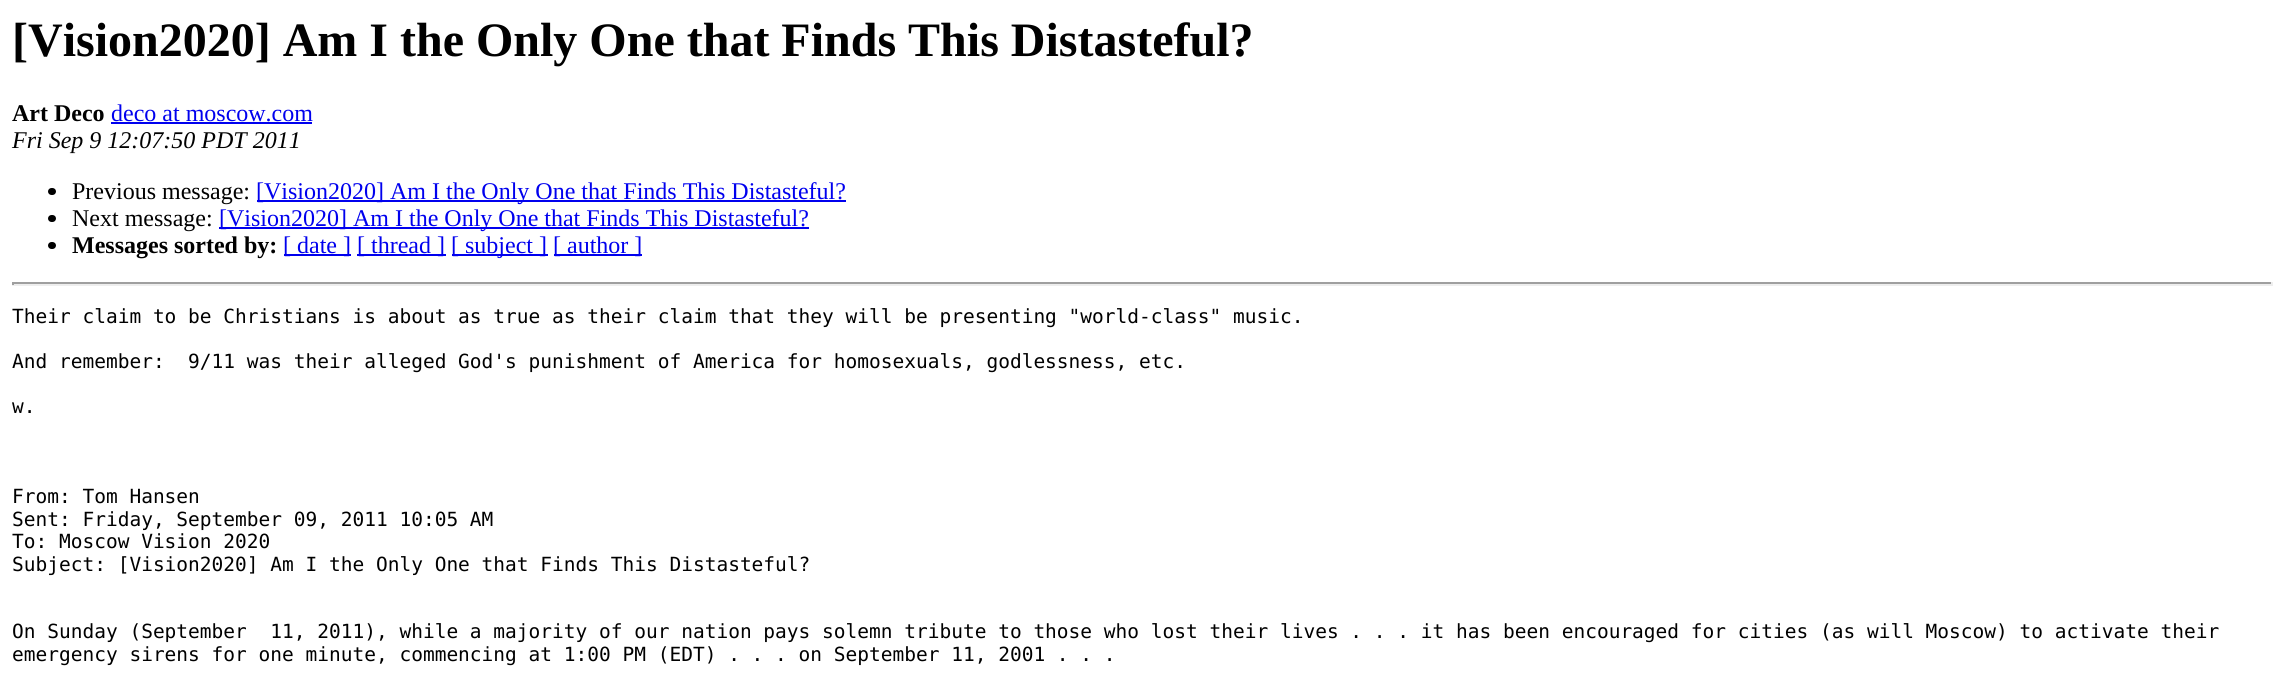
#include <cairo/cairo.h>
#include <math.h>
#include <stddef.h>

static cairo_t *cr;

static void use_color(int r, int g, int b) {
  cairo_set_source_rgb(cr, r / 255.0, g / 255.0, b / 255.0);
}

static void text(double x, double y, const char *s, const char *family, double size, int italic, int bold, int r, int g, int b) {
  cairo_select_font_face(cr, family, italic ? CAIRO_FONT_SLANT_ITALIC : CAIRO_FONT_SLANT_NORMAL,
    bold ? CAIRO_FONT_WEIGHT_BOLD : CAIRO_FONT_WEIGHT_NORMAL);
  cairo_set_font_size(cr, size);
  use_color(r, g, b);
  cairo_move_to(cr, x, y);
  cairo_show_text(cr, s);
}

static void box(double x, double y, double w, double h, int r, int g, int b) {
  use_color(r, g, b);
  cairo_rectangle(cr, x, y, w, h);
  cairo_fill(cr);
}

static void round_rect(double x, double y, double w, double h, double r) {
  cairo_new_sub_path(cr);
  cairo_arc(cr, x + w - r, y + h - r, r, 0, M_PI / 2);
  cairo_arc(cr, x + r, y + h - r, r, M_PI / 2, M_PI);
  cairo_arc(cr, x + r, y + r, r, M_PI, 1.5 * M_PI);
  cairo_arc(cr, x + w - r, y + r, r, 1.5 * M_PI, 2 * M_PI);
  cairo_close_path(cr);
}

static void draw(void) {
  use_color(255, 255, 255);
  cairo_paint(cr);
  box(111, 122, 201, 2, 0, 0, 238);
  use_color(0, 0, 0);
  round_rect(48, 188, 8, 7, 3.5);
  cairo_fill(cr);
  box(257, 200, 589, 2, 0, 0, 238);
  use_color(0, 0, 0);
  round_rect(48, 215, 8, 7, 3.5);
  cairo_fill(cr);
  box(219, 227, 590, 2, 0, 0, 238);
  use_color(0, 0, 0);
  round_rect(48, 242, 8, 7, 3.5);
  cairo_fill(cr);
  box(284, 254, 67, 2, 0, 0, 238);
  box(357, 254, 89, 2, 0, 0, 238);
  box(452, 254, 96, 2, 0, 0, 238);
  box(554, 254, 88, 2, 0, 0, 238);
  box(12, 282, 2261, 2, 159, 159, 159);
  box(2271, 282, 2, 3, 238, 238, 238);
  box(12, 284, 2261, 2, 238, 238, 238);
  box(12, 282, 2, 3, 159, 159, 159);
  text(12, 56, "[Vision2020] Am I the Only One that Finds This Distasteful?", "Liberation Serif", 48, 0, 1, 0, 0, 0);
  text(12, 121, "Art Deco", "Liberation Serif", 24, 0, 1, 0, 0, 0);
  text(111, 121, "deco at moscow.com", "Liberation Serif", 24, 0, 0, 0, 0, 238);
  text(12, 148, "Fri Sep 9 12:07:50 PDT 2011", "Liberation Serif", 24, 1, 0, 0, 0, 0);
  text(72, 199, "Previous message:", "Liberation Serif", 24, 0, 0, 0, 0, 0);
  text(256, 199, "[Vision2020] Am I the Only One that Finds This Distasteful?", "Liberation Serif", 24, 0, 0, 0, 0, 238);
  text(72, 226, "Next message:", "Liberation Serif", 24, 0, 0, 0, 0, 0);
  text(219, 226, "[Vision2020] Am I the Only One that Finds This Distasteful?", "Liberation Serif", 24, 0, 0, 0, 0, 238);
  text(72, 253, "Messages sorted by:", "Liberation Serif", 24, 0, 1, 0, 0, 0);
  text(283, 253, "[ date ]", "Liberation Serif", 24, 0, 0, 0, 0, 238);
  text(357, 253, "[ thread ]", "Liberation Serif", 24, 0, 0, 0, 0, 238);
  text(451, 253, "[ subject ]", "Liberation Serif", 24, 0, 0, 0, 0, 238);
  text(553, 253, "[ author ]", "Liberation Serif", 24, 0, 0, 0, 0, 238);
  text(12, 323, "Their claim to be Christians is about as true as their claim that they will be presenting \"world-class\" music.", "DejaVu Sans Mono", 19.5, 0, 0, 0, 0, 0);
  text(12, 368, "And remember:  9/11 was their alleged God's punishment of America for homosexuals, godlessness, etc.", "DejaVu Sans Mono", 19.5, 0, 0, 0, 0, 0);
  text(12, 413, "w.", "DejaVu Sans Mono", 19.5, 0, 0, 0, 0, 0);
  text(12, 503, "From: Tom Hansen", "DejaVu Sans Mono", 19.5, 0, 0, 0, 0, 0);
  text(12, 526, "Sent: Friday, September 09, 2011 10:05 AM", "DejaVu Sans Mono", 19.5, 0, 0, 0, 0, 0);
  text(12, 548, "To: Moscow Vision 2020", "DejaVu Sans Mono", 19.5, 0, 0, 0, 0, 0);
  text(12, 571, "Subject: [Vision2020] Am I the Only One that Finds This Distasteful?", "DejaVu Sans Mono", 19.5, 0, 0, 0, 0, 0);
  text(12, 638, "On Sunday (September  11, 2011), while a majority of our nation pays solemn tribute to those who lost their lives . . . it has been encouraged for cities (as will Moscow) to activate their", "DejaVu Sans Mono", 19.5, 0, 0, 0, 0, 0);
  text(12, 661, "emergency sirens for one minute, commencing at 1:00 PM (EDT) . . . on September 11, 2001 . . .", "DejaVu Sans Mono", 19.5, 0, 0, 0, 0, 0);
}

int main(void) {
  cairo_surface_t *surface = cairo_image_surface_create(CAIRO_FORMAT_RGB24, 2284, 689);
  cr = cairo_create(surface);
  cairo_font_options_t *options = cairo_font_options_create();
  cairo_font_options_set_hint_metrics(options, CAIRO_HINT_METRICS_OFF);
  cairo_font_options_set_hint_style(options, CAIRO_HINT_STYLE_NONE);
  cairo_set_font_options(cr, options);
  cairo_set_miter_limit(cr, 4);
  draw();
  cairo_surface_write_to_png(surface, "out.png");
  cairo_font_options_destroy(options);
  cairo_destroy(cr);
  cairo_surface_destroy(surface);
  return 0;
}
